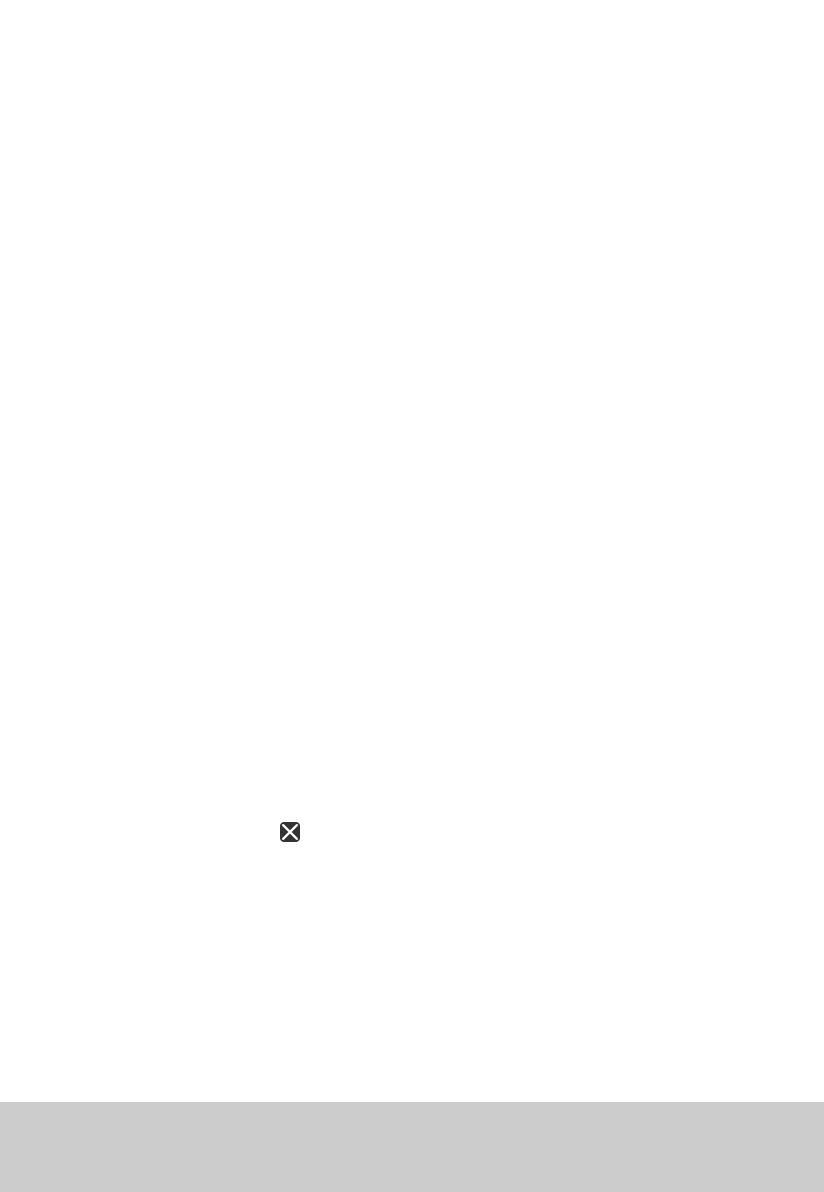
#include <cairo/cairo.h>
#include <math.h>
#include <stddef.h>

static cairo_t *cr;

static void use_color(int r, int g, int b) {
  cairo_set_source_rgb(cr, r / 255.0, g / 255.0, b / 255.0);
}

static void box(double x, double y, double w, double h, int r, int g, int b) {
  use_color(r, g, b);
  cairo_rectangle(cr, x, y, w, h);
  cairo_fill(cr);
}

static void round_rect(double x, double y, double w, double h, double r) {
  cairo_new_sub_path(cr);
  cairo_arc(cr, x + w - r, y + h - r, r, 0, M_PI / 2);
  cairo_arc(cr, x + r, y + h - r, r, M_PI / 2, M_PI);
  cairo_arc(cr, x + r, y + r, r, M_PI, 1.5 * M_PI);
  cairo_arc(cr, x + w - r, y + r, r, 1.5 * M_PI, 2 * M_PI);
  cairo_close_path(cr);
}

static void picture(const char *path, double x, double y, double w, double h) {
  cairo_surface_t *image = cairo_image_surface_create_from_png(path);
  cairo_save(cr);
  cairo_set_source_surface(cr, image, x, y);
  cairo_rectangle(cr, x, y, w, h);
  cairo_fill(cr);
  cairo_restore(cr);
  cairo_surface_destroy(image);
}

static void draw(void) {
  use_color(255, 255, 255);
  cairo_paint(cr);
  use_color(51, 51, 51);
  round_rect(280, 822, 20, 20, 4);
  cairo_fill(cr);
  picture("img_01.png", 282, 824, 16, 16);
  box(0, 1102, 824, 90, 204, 204, 204);
}

int main(void) {
  cairo_surface_t *surface = cairo_image_surface_create(CAIRO_FORMAT_RGB24, 824, 1192);
  cr = cairo_create(surface);
  cairo_font_options_t *options = cairo_font_options_create();
  cairo_font_options_set_hint_metrics(options, CAIRO_HINT_METRICS_OFF);
  cairo_font_options_set_hint_style(options, CAIRO_HINT_STYLE_NONE);
  cairo_set_font_options(cr, options);
  cairo_set_miter_limit(cr, 4);
  draw();
  cairo_surface_write_to_png(surface, "out.png");
  cairo_font_options_destroy(options);
  cairo_destroy(cr);
  cairo_surface_destroy(surface);
  return 0;
}
